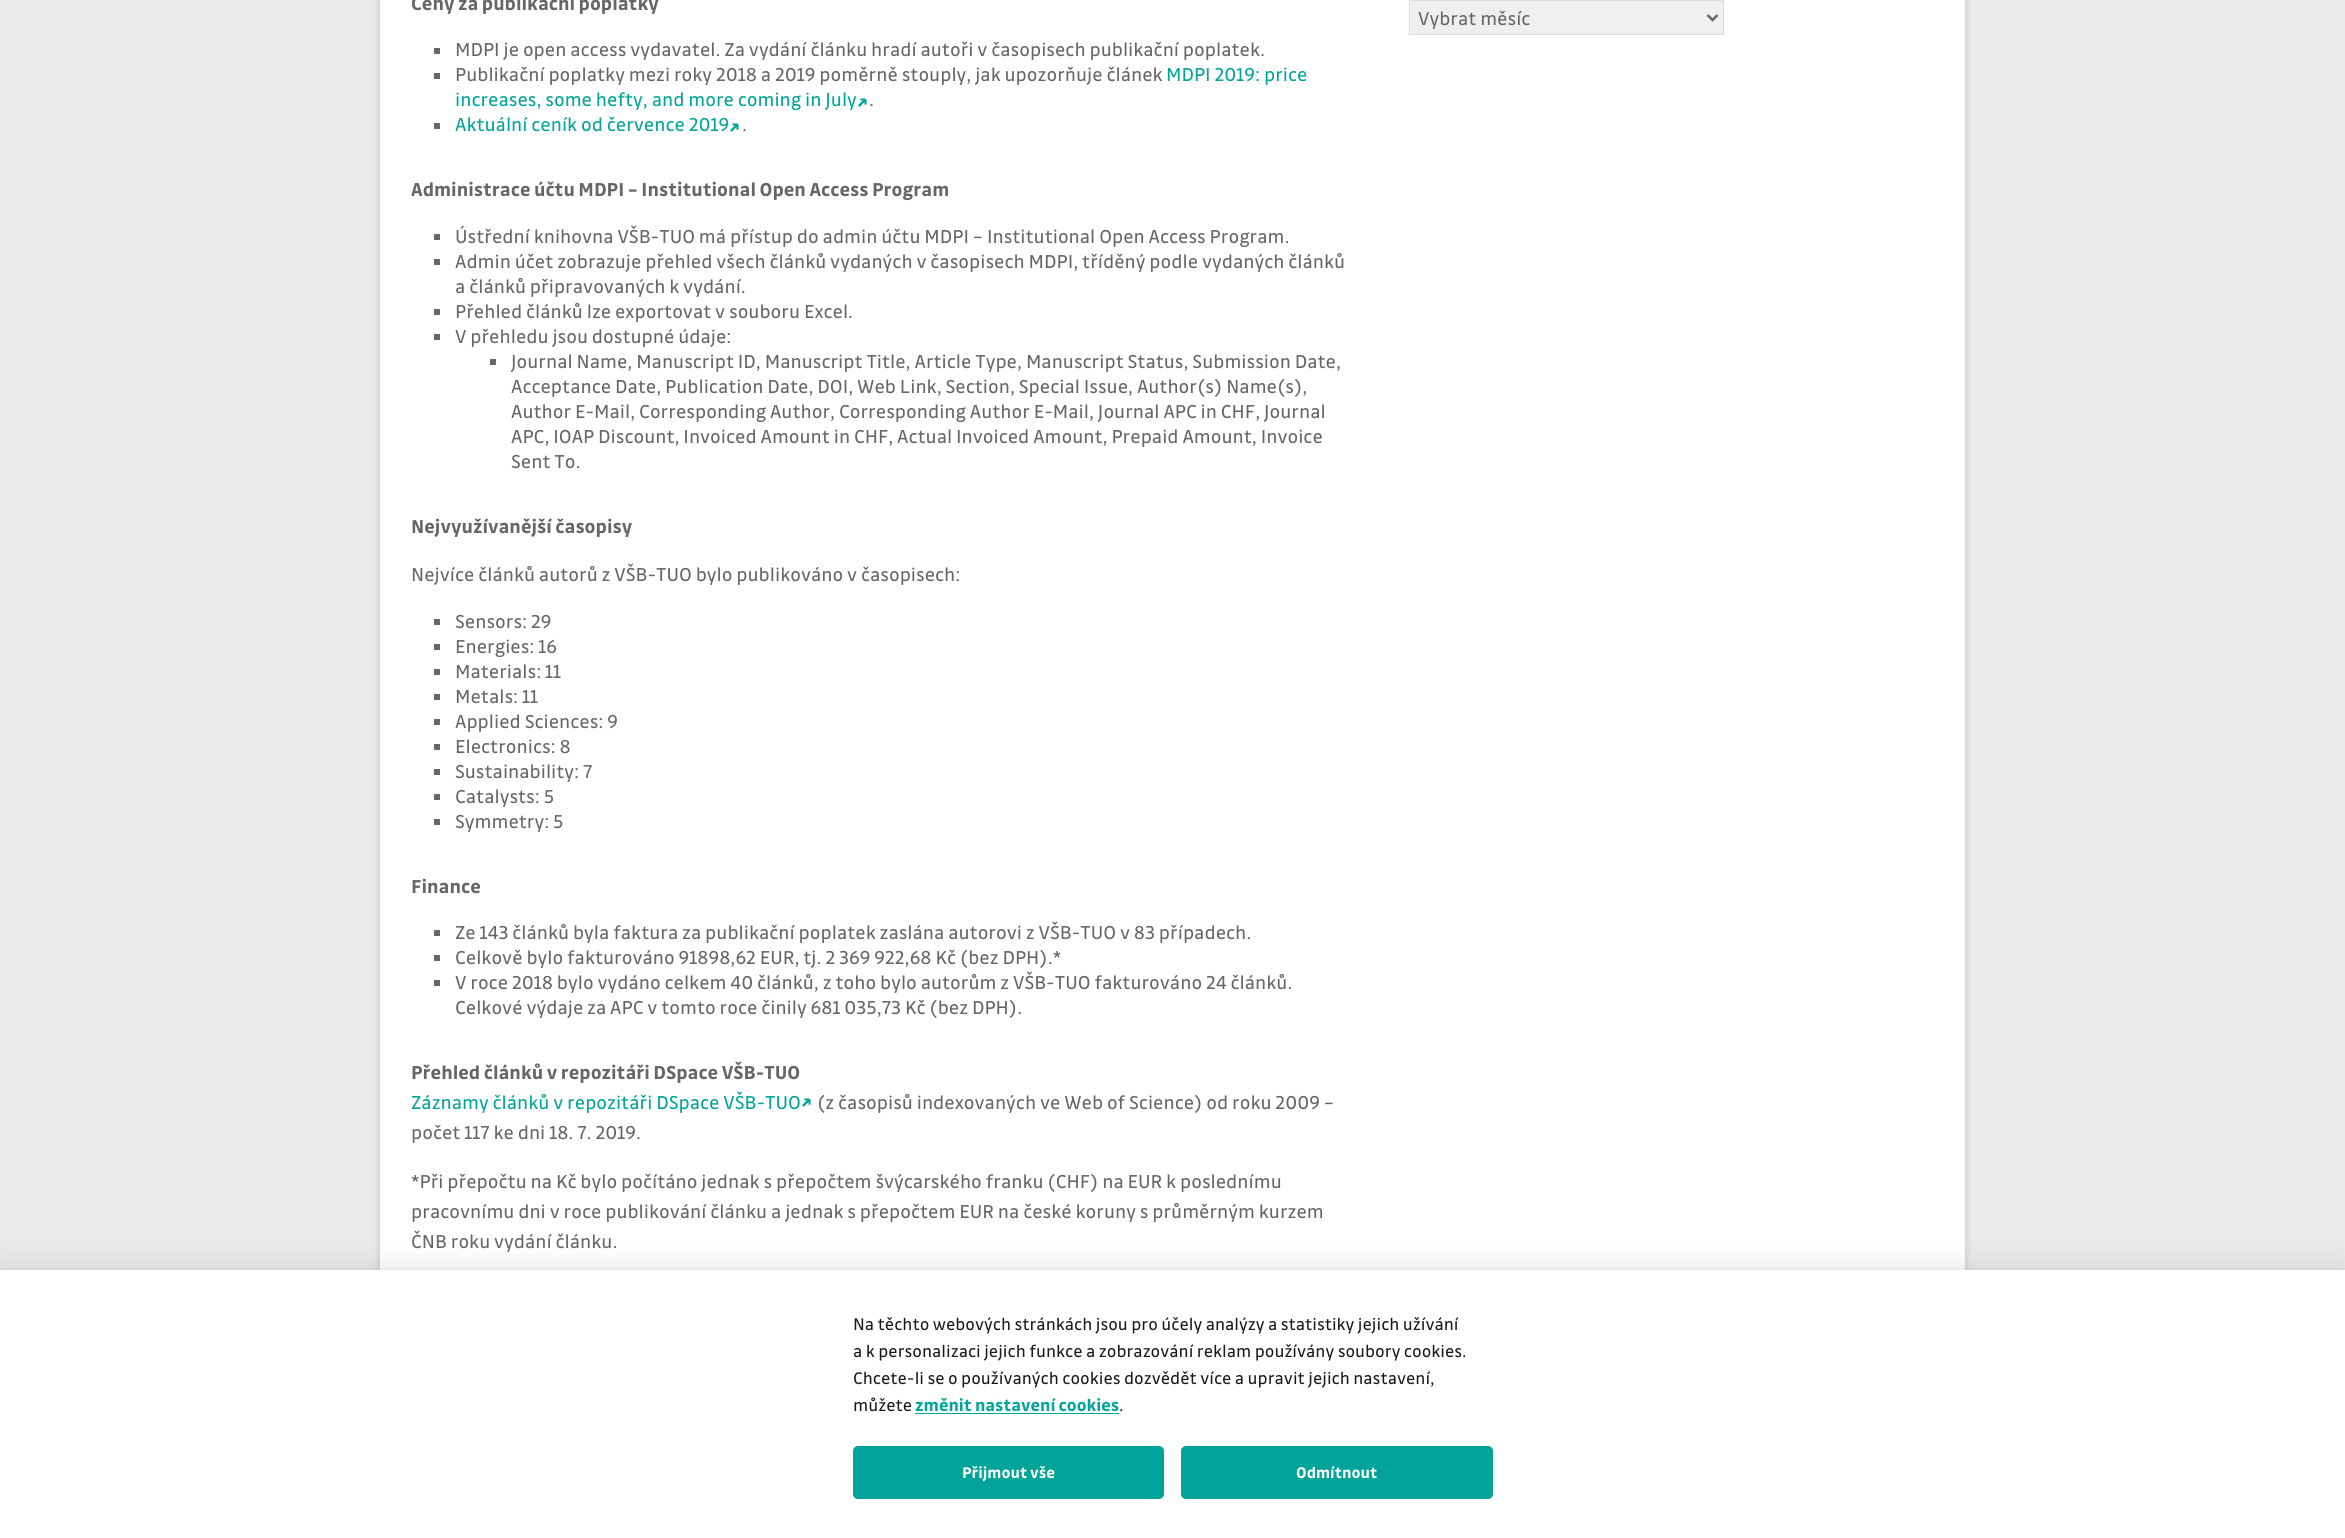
#include <cairo/cairo.h>
#include <math.h>
#include <stddef.h>

static cairo_t *cr;

static void use_color(int r, int g, int b) {
  cairo_set_source_rgb(cr, r / 255.0, g / 255.0, b / 255.0);
}

static void text(double x, double y, const char *s, const char *family, double size, int italic, int bold, int r, int g, int b) {
  cairo_select_font_face(cr, family, italic ? CAIRO_FONT_SLANT_ITALIC : CAIRO_FONT_SLANT_NORMAL,
    bold ? CAIRO_FONT_WEIGHT_BOLD : CAIRO_FONT_WEIGHT_NORMAL);
  cairo_set_font_size(cr, size);
  use_color(r, g, b);
  cairo_move_to(cr, x, y);
  cairo_show_text(cr, s);
}

static void box(double x, double y, double w, double h, int r, int g, int b) {
  use_color(r, g, b);
  cairo_rectangle(cr, x, y, w, h);
  cairo_fill(cr);
}

static void round_rect(double x, double y, double w, double h, double r) {
  cairo_new_sub_path(cr);
  cairo_arc(cr, x + w - r, y + h - r, r, 0, M_PI / 2);
  cairo_arc(cr, x + r, y + h - r, r, M_PI / 2, M_PI);
  cairo_arc(cr, x + r, y + r, r, M_PI, 1.5 * M_PI);
  cairo_arc(cr, x + w - r, y + r, r, 1.5 * M_PI, 2 * M_PI);
  cairo_close_path(cr);
}

static void shadow(double x, double y, double w, double h, double r, double blur, double alpha) {
  cairo_push_group_with_content(cr, CAIRO_CONTENT_ALPHA);
  cairo_set_operator(cr, CAIRO_OPERATOR_SOURCE);
  for (int i = 15; i >= -15 && fmin(w, h) + blur * i / 3 > 0; i -= 2) {
    double e = blur * i / 6;
    cairo_set_source_rgba(cr, 0, 0, 0, alpha * erfc((i - 1) / 8.5) / 2);
    round_rect(x - e, y - e, w + 2 * e, h + 2 * e, fmax(0, fmin(r + e + blur * .6, fmin(w, h) / 2 + e)));
    cairo_fill(cr);
  }
  cairo_pattern_t *soft = cairo_pop_group(cr);
  cairo_mask(cr, soft);
  cairo_pattern_destroy(soft);
}

static void draw(void) {
  use_color(234, 234, 234);
  cairo_paint(cr);
  use_color(100, 100, 100);
  shadow(380, -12, 1585, 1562, 0, 4, 0.3);
  box(380, 0, 1585, 1270, 255, 255, 255);
  box(434, 48, 6, 6, 102, 102, 102);
  box(434, 73, 6, 6, 102, 102, 102);
  box(434, 123, 6, 6, 102, 102, 102);
  box(434, 234, 6, 6, 102, 102, 102);
  box(434, 259, 6, 6, 102, 102, 102);
  box(434, 309, 6, 6, 102, 102, 102);
  box(434, 334, 6, 6, 102, 102, 102);
  box(490, 359, 6, 6, 102, 102, 102);
  box(434, 619, 6, 6, 102, 102, 102);
  box(434, 644, 6, 6, 102, 102, 102);
  box(434, 669, 6, 6, 102, 102, 102);
  box(434, 694, 6, 6, 102, 102, 102);
  box(434, 719, 6, 6, 102, 102, 102);
  box(434, 744, 6, 6, 102, 102, 102);
  box(434, 769, 6, 6, 102, 102, 102);
  box(434, 794, 6, 6, 102, 102, 102);
  box(434, 819, 6, 6, 102, 102, 102);
  box(434, 930, 6, 6, 102, 102, 102);
  box(434, 955, 6, 6, 102, 102, 102);
  box(434, 980, 6, 6, 102, 102, 102);
  use_color(239, 239, 239);
  cairo_rectangle(cr, 1409.5, 0.5, 314, 34);
  cairo_fill_preserve(cr);
  use_color(221, 221, 221);
  cairo_set_line_width(cr, 1);
  cairo_stroke(cr);
  cairo_new_path(cr);
  cairo_move_to(cr, 1707.5, 15);
  cairo_line_to(cr, 1712.5, 20);
  cairo_line_to(cr, 1717.5, 15);
  use_color(102, 102, 102);
  cairo_set_line_width(cr, 2.5);
  cairo_stroke(cr);
  use_color(2, 2, 3);
  shadow(0, 1283, 2345, 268, 0, 19, 0.28);
  box(0, 1270, 2345, 268, 255, 255, 255);
  box(915, 1413, 204, 1, 0, 164, 153);
  round_rect(853, 1446, 311, 53, 5);
  cairo_fill(cr);
  round_rect(1181, 1446, 312, 53, 5);
  cairo_fill(cr);
  text(411, 10, "Ceny za publikační poplatky", "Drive", 20, 0, 1, 102, 102, 102);
  text(455, 56, "MDPI je open access vydavatel. Za vydání článku hradí autoři v časopisech publikační poplatek.", "Drive", 20, 0, 0, 102, 102, 102);
  text(455, 81, "Publikační poplatky mezi roky 2018 a 2019 poměrně stouply, jak upozorňuje článek", "Drive", 20, 0, 0, 102, 102, 102);
  text(1166, 81, "MDPI 2019: price", "Drive", 20, 0, 0, 0, 164, 153);
  text(455, 106, "increases, some hefty, and more coming in July", "Drive", 20, 0, 0, 0, 164, 153);
  text(857, 109, "↗", "Drive", 20, 0, 1, 0, 164, 153);
  text(869, 106, ".", "Drive", 20, 0, 0, 102, 102, 102);
  text(455, 131, "Aktuální ceník od července 2019", "Drive", 20, 0, 0, 0, 164, 153);
  text(729, 134, "↗", "Drive", 20, 0, 1, 0, 164, 153);
  text(742, 131, ".", "Drive", 20, 0, 0, 102, 102, 102);
  text(411, 196, "Administrace účtu MDPI – Institutional Open Access Program", "Drive", 20, 0, 1, 102, 102, 102);
  text(455, 243, "Ústřední knihovna VŠB-TUO má přístup do admin účtu MDPI – Institutional Open Access Program.", "Drive", 20, 0, 0, 102, 102, 102);
  text(455, 268, "Admin účet zobrazuje přehled všech článků vydaných v časopisech MDPI, tříděný podle vydaných článků", "Drive", 20, 0, 0, 102, 102, 102);
  text(455, 293, "a článků připravovaných k vydání.", "Drive", 20, 0, 0, 102, 102, 102);
  text(455, 318, "Přehled článků lze exportovat v souboru Excel.", "Drive", 20, 0, 0, 102, 102, 102);
  text(455, 343, "V přehledu jsou dostupné údaje:", "Drive", 20, 0, 0, 102, 102, 102);
  text(511, 368, "Journal Name, Manuscript ID, Manuscript Title, Article Type, Manuscript Status, Submission Date,", "Drive", 20, 0, 0, 102, 102, 102);
  text(511, 393, "Acceptance Date, Publication Date, DOI, Web Link, Section, Special Issue, Author(s) Name(s),", "Drive", 20, 0, 0, 102, 102, 102);
  text(511, 418, "Author E-Mail, Corresponding Author, Corresponding Author E-Mail, Journal APC in CHF, Journal", "Drive", 20, 0, 0, 102, 102, 102);
  text(511, 443, "APC, IOAP Discount, Invoiced Amount in CHF, Actual Invoiced Amount, Prepaid Amount, Invoice", "Drive", 20, 0, 0, 102, 102, 102);
  text(511, 468, "Sent To.", "Drive", 20, 0, 0, 102, 102, 102);
  text(411, 533, "Nejvyužívanější časopisy", "Drive", 20, 0, 1, 102, 102, 102);
  text(411, 581, "Nejvíce článků autorů z VŠB-TUO bylo publikováno v časopisech:", "Drive", 20, 0, 0, 102, 102, 102);
  text(455, 628, "Sensors: 29", "Drive", 20, 0, 0, 102, 102, 102);
  text(455, 653, "Energies: 16", "Drive", 20, 0, 0, 102, 102, 102);
  text(455, 678, "Materials: 11", "Drive", 20, 0, 0, 102, 102, 102);
  text(455, 703, "Metals: 11", "Drive", 20, 0, 0, 102, 102, 102);
  text(455, 728, "Applied Sciences: 9", "Drive", 20, 0, 0, 102, 102, 102);
  text(455, 753, "Electronics: 8", "Drive", 20, 0, 0, 102, 102, 102);
  text(455, 778, "Sustainability: 7", "Drive", 20, 0, 0, 102, 102, 102);
  text(455, 803, "Catalysts: 5", "Drive", 20, 0, 0, 102, 102, 102);
  text(455, 828, "Symmetry: 5", "Drive", 20, 0, 0, 102, 102, 102);
  text(411, 893, "Finance", "Drive", 20, 0, 1, 102, 102, 102);
  text(455, 939, "Ze 143 článků byla faktura za publikační poplatek zaslána autorovi z VŠB-TUO v 83 případech.", "Drive", 20, 0, 0, 102, 102, 102);
  text(455, 964, "Celkově bylo fakturováno 91898,62 EUR, tj. 2 369 922,68 Kč (bez DPH).*", "Drive", 20, 0, 0, 102, 102, 102);
  text(455, 989, "V roce 2018 bylo vydáno celkem 40 článků, z toho bylo autorům z VŠB-TUO fakturováno 24 článků.", "Drive", 20, 0, 0, 102, 102, 102);
  text(455, 1014, "Celkové výdaje za APC v tomto roce činily 681 035,73 Kč (bez DPH).", "Drive", 20, 0, 0, 102, 102, 102);
  text(411, 1079, "Přehled článků v repozitáři DSpace VŠB-TUO", "Drive", 20, 0, 1, 102, 102, 102);
  text(411, 1109, "Záznamy článků v repozitáři DSpace VŠB-TUO", "Drive", 20, 0, 0, 0, 164, 153);
  text(801, 1109, "↗", "Drive", 20, 0, 1, 0, 164, 153);
  text(817, 1109, "(z časopisů indexovaných ve Web of Science) od roku 2009 –", "Drive", 20, 0, 0, 102, 102, 102);
  text(411, 1139, "počet 117 ke dni 18. 7. 2019.", "Drive", 20, 0, 0, 102, 102, 102);
  text(411, 1188, "*Při přepočtu na Kč bylo počítáno jednak s přepočtem švýcarského franku (CHF) na EUR k poslednímu", "Drive", 20, 0, 0, 102, 102, 102);
  text(411, 1218, "pracovnímu dni v roce publikování článku a jednak s přepočtem EUR na české koruny s průměrným kurzem", "Drive", 20, 0, 0, 102, 102, 102);
  text(411, 1248, "ČNB roku vydání článku.", "Drive", 20, 0, 0, 102, 102, 102);
  text(1418, 25, "Vybrat měsíc", "Drive", 20, 0, 0, 102, 102, 102);
  text(853, 1330, "Na těchto webových stránkách jsou pro účely analýzy a statistiky jejich užívání", "Drive", 18, 0, 0, 26, 26, 26);
  text(853, 1357, "a k personalizaci jejich funkce a zobrazování reklam používány soubory cookies.", "Drive", 18, 0, 0, 26, 26, 26);
  text(853, 1384, "Chcete-li se o používaných cookies dozvědět více a upravit jejich nastavení,", "Drive", 18, 0, 0, 26, 26, 26);
  text(853, 1411, "můžete", "Drive", 18, 0, 0, 26, 26, 26);
  text(915, 1411, "změnit nastavení cookies", "Drive", 18, 0, 1, 0, 164, 153);
  text(1119, 1411, ".", "Drive", 18, 0, 0, 26, 26, 26);
  text(962, 1478, "Přijmout vše", "Drive", 16.5, 0, 1, 255, 255, 255);
  text(1296, 1478, "Odmítnout", "Drive", 16.5, 0, 1, 255, 255, 255);
}

int main(void) {
  cairo_surface_t *surface = cairo_image_surface_create(CAIRO_FORMAT_RGB24, 2345, 1538);
  cr = cairo_create(surface);
  cairo_font_options_t *options = cairo_font_options_create();
  cairo_font_options_set_hint_metrics(options, CAIRO_HINT_METRICS_OFF);
  cairo_font_options_set_hint_style(options, CAIRO_HINT_STYLE_NONE);
  cairo_set_font_options(cr, options);
  cairo_set_miter_limit(cr, 4);
  draw();
  cairo_surface_write_to_png(surface, "out.png");
  cairo_font_options_destroy(options);
  cairo_destroy(cr);
  cairo_surface_destroy(surface);
  return 0;
}
